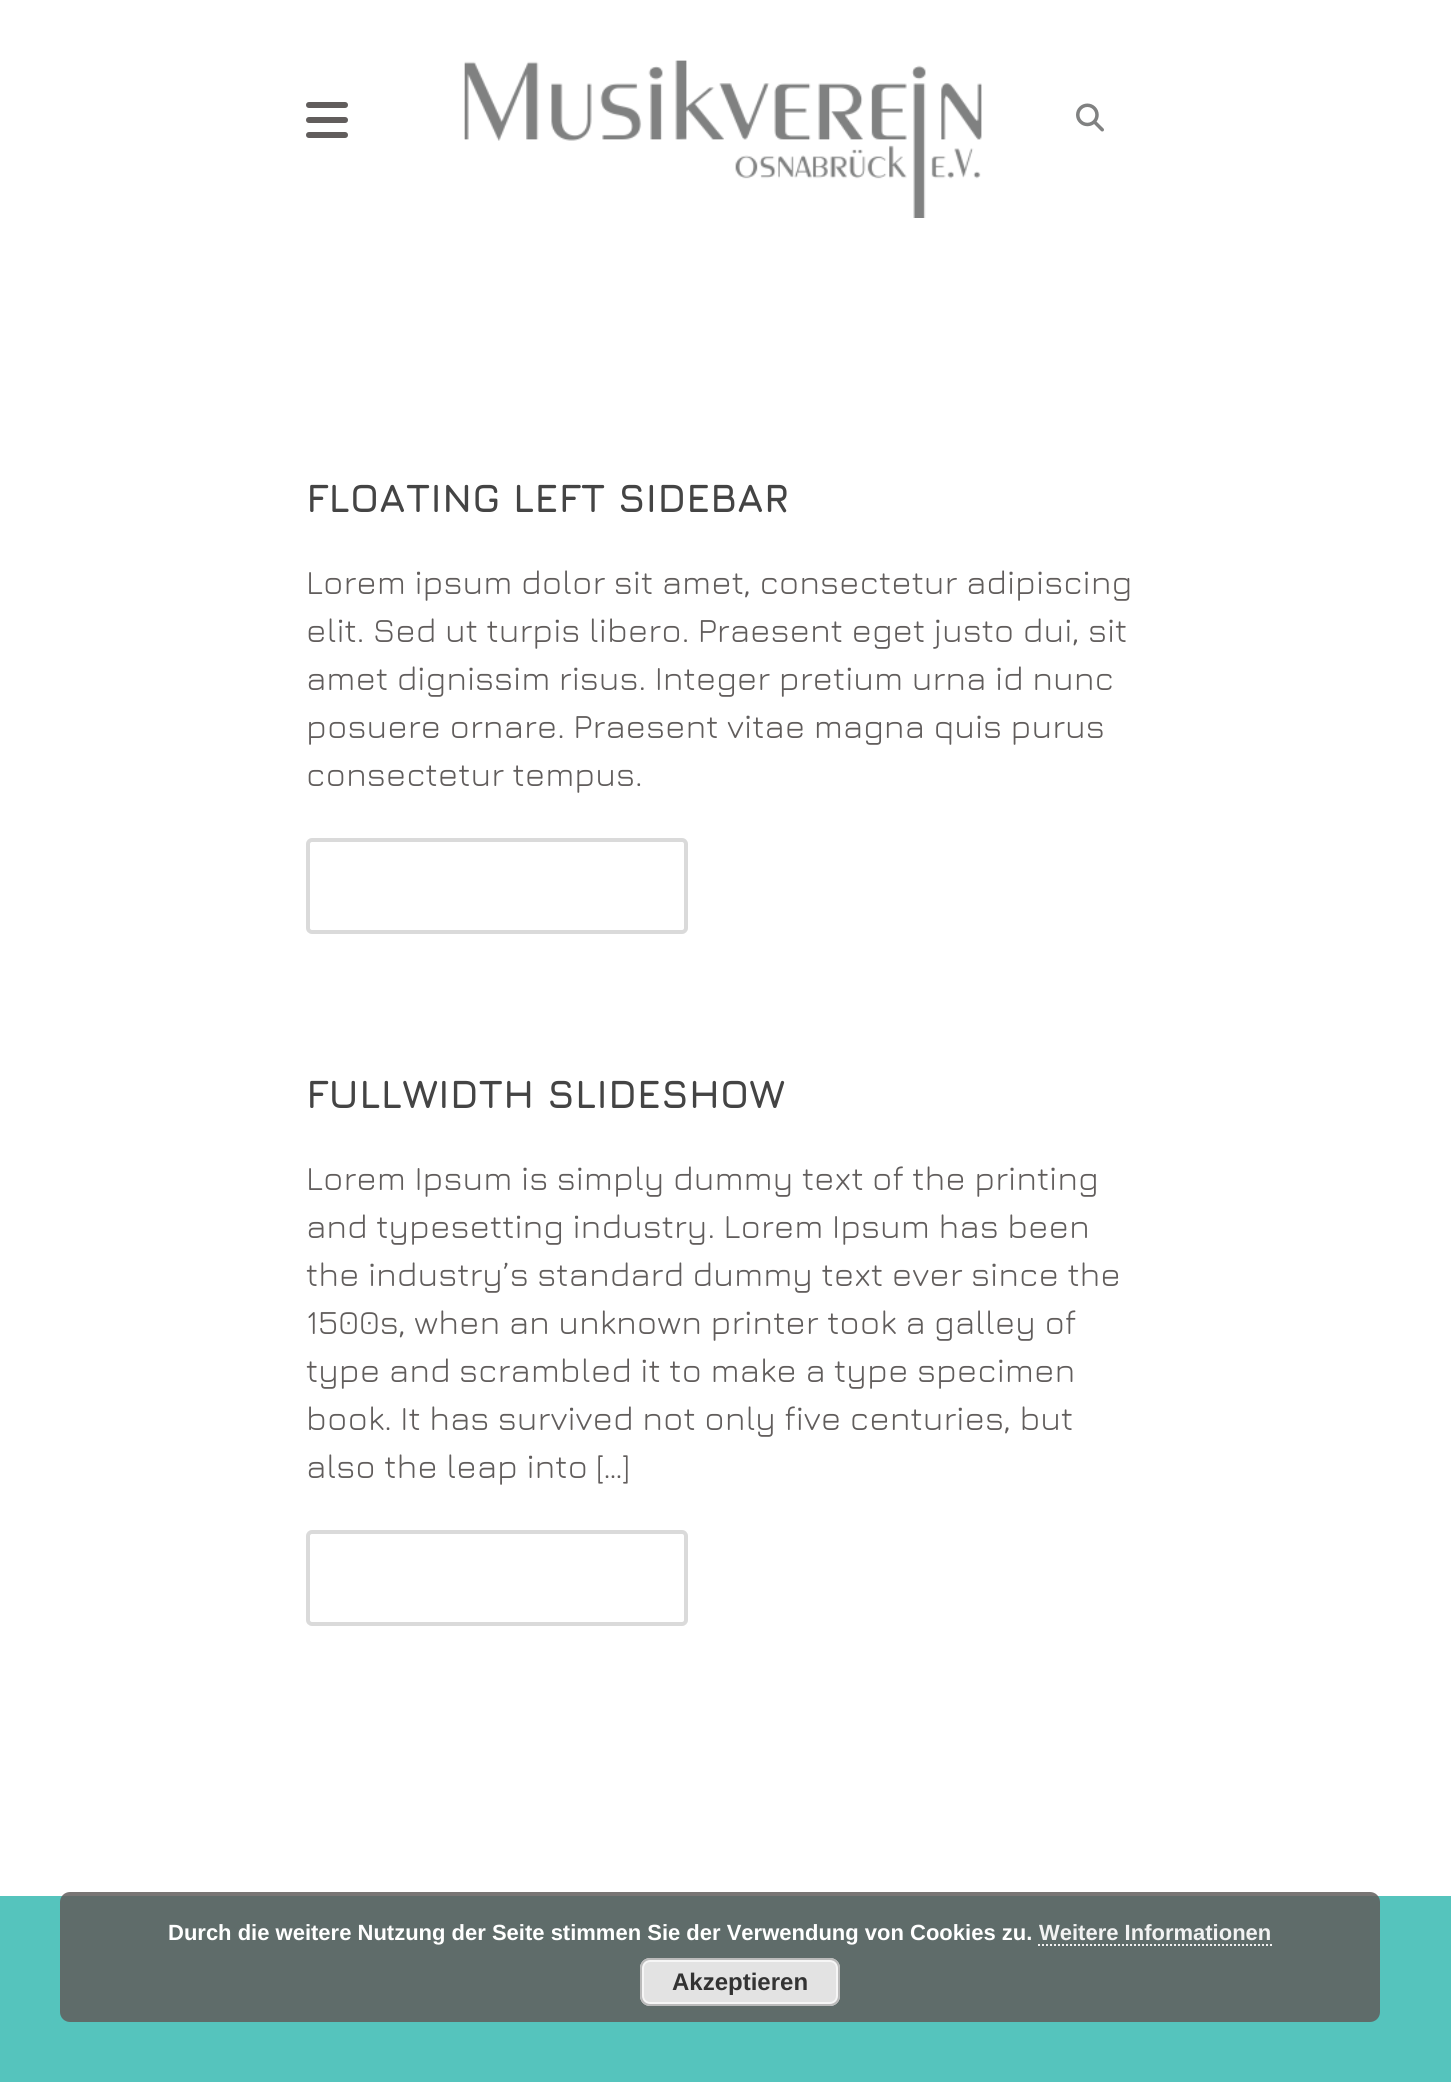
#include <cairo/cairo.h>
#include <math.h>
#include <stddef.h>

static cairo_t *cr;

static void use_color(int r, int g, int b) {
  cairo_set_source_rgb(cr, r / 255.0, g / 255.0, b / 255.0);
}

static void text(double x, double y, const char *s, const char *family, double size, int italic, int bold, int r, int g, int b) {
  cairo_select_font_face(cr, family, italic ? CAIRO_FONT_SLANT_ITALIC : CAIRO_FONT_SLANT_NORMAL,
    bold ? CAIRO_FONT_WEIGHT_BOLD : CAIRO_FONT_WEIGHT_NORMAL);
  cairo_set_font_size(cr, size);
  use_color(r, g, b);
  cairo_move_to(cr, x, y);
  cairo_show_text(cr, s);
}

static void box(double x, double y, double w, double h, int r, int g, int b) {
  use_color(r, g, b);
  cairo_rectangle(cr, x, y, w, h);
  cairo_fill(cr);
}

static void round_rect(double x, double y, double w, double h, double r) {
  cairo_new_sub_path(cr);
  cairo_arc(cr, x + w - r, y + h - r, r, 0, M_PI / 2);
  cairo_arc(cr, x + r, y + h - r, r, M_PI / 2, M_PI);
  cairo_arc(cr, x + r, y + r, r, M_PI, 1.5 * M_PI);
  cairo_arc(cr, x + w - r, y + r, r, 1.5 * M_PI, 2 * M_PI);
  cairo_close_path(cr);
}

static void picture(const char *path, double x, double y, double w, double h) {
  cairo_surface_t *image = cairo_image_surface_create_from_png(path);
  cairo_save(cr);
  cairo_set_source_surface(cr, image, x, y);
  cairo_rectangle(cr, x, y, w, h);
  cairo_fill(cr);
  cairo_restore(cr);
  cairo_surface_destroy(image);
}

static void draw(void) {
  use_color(255, 255, 255);
  cairo_paint(cr);
  picture("img_01.png", 306, 102, 42, 36);
  picture("img_02.png", 464, 60, 518, 158);
  picture("img_03.png", 1076, 103, 28, 29);
  round_rect(308, 840, 378, 92, 4);
  use_color(218, 218, 218);
  cairo_set_line_width(cr, 4);
  cairo_stroke(cr);
  round_rect(308, 1532, 378, 92, 4);
  cairo_stroke(cr);
  box(0, 1896, 1451, 186, 85, 196, 189);
  cairo_set_source_rgba(cr, 0.38, 0.365, 0.361, 0.85);
  round_rect(60, 1892, 1320, 130, 10);
  cairo_fill(cr);
  cairo_new_path(cr);
  cairo_move_to(cr, 1038, 1945);
  cairo_line_to(cr, 1272, 1945);
  use_color(242, 242, 242);
  cairo_set_line_width(cr, 2);
  cairo_set_dash(cr, (double[]){2, 2}, 2, 0);
  cairo_stroke(cr);
  use_color(227, 227, 227);
  round_rect(640, 1958, 200, 48, 10);
  cairo_fill(cr);
  round_rect(643, 1961, 194, 42, 7);
  use_color(246, 246, 246);
  cairo_set_dash(cr, NULL, 0, 0);
  cairo_stroke(cr);
  round_rect(641, 1959, 198, 46, 9);
  use_color(187, 187, 187);
  cairo_stroke(cr);
  text(306, 512, "FLOATING LEFT SIDEBAR", "Jura", 40, 0, 1, 68, 68, 68);
  text(306, 594, "Lorem ipsum dolor sit amet, consectetur adipiscing", "Jura", 34, 0, 0, 97, 93, 92);
  text(306, 642, "elit. Sed ut turpis libero. Praesent eget justo dui, sit", "Jura", 34, 0, 0, 97, 93, 92);
  text(306, 690, "amet dignissim risus. Integer pretium urna id nunc", "Jura", 34, 0, 0, 97, 93, 92);
  text(306, 738, "posuere ornare. Praesent vitae magna quis purus", "Jura", 34, 0, 0, 97, 93, 92);
  text(306, 786, "consectetur tempus.", "Jura", 34, 0, 0, 97, 93, 92);
  text(306, 1108, "FULLWIDTH SLIDESHOW", "Jura", 40, 0, 1, 68, 68, 68);
  text(306, 1190, "Lorem Ipsum is simply dummy text of the printing", "Jura", 34, 0, 0, 97, 93, 92);
  text(306, 1238, "and typesetting industry. Lorem Ipsum has been", "Jura", 34, 0, 0, 97, 93, 92);
  text(306, 1286, "the industry’s standard dummy text ever since the", "Jura", 34, 0, 0, 97, 93, 92);
  text(306, 1334, "1500s, when an unknown printer took a galley of", "Jura", 34, 0, 0, 97, 93, 92);
  text(306, 1382, "type and scrambled it to make a type specimen", "Jura", 34, 0, 0, 97, 93, 92);
  text(306, 1430, "book. It has survived not only five centuries, but", "Jura", 34, 0, 0, 97, 93, 92);
  text(306, 1478, "also the leap into […]", "Jura", 34, 0, 0, 97, 93, 92);
  text(168, 1940, "Durch die weitere Nutzung der Seite stimmen Sie der Verwendung von Cookies zu.", "Liberation Sans", 22, 0, 1, 255, 255, 255);
  text(1039, 1940, "Weitere Informationen", "Liberation Sans", 22, 0, 1, 242, 242, 242);
  text(672, 1990, "Akzeptieren", "Liberation Sans", 24, 0, 1, 51, 51, 51);
}

int main(void) {
  cairo_surface_t *surface = cairo_image_surface_create(CAIRO_FORMAT_RGB24, 1451, 2082);
  cr = cairo_create(surface);
  cairo_font_options_t *options = cairo_font_options_create();
  cairo_font_options_set_hint_metrics(options, CAIRO_HINT_METRICS_OFF);
  cairo_font_options_set_hint_style(options, CAIRO_HINT_STYLE_NONE);
  cairo_set_font_options(cr, options);
  cairo_set_miter_limit(cr, 4);
  draw();
  cairo_surface_write_to_png(surface, "out.png");
  cairo_font_options_destroy(options);
  cairo_destroy(cr);
  cairo_surface_destroy(surface);
  return 0;
}
